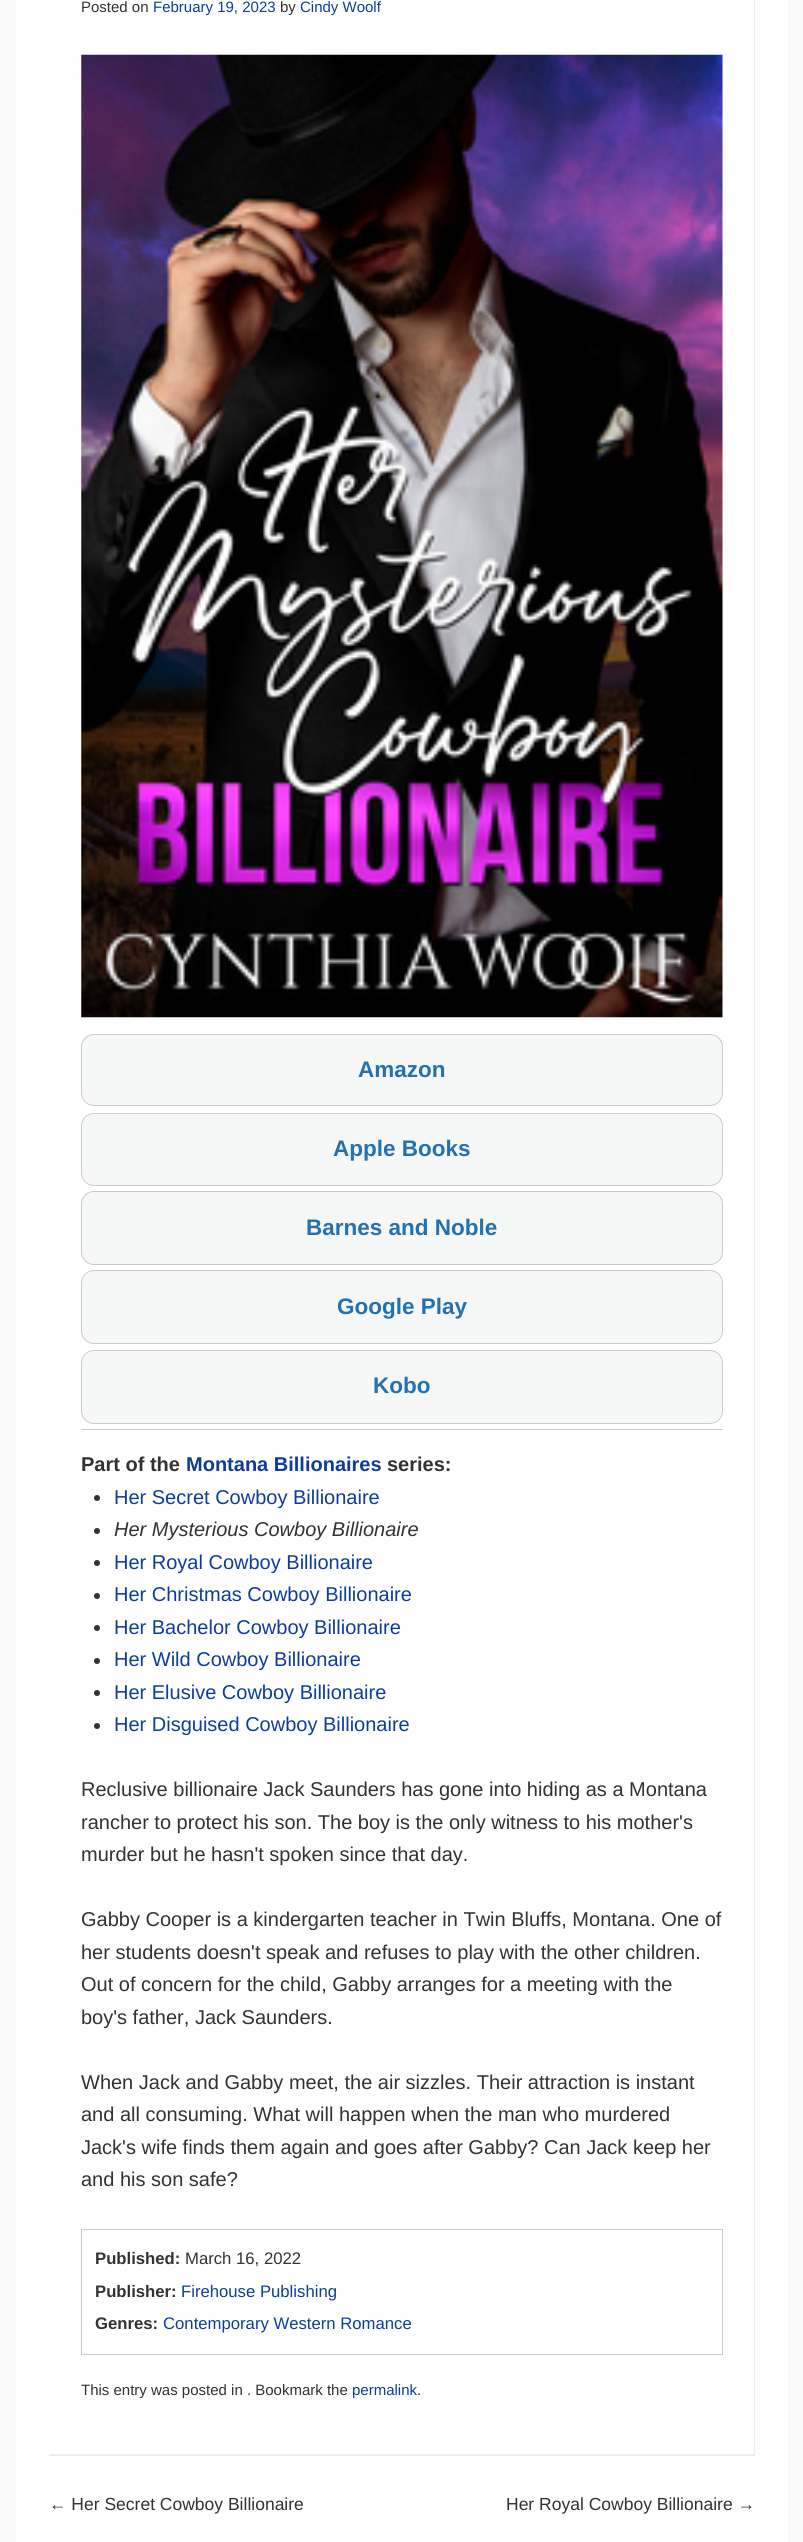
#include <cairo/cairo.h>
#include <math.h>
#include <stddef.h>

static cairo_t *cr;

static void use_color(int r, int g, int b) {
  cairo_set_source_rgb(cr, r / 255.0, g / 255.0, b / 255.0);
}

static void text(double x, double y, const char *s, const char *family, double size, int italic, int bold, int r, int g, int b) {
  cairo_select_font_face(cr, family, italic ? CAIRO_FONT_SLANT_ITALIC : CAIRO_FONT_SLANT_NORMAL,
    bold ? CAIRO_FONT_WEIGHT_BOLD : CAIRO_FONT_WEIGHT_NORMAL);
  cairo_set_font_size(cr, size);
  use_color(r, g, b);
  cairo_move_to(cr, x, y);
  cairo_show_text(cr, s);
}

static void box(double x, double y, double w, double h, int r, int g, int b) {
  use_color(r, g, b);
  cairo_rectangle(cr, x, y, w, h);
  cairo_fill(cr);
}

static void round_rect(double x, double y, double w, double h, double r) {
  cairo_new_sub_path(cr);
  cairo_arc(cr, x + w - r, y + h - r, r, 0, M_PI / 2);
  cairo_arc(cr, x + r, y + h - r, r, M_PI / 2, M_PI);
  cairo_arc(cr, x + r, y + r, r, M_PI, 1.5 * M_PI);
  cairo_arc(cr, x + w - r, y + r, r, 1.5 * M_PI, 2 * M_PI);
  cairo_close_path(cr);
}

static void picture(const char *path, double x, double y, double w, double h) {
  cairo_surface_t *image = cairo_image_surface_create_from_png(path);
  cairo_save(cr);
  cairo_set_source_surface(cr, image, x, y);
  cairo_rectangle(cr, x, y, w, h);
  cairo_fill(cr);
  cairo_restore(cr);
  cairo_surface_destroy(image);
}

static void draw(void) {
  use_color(250, 250, 250);
  cairo_paint(cr);
  box(16, 0, 772, 2542, 255, 255, 255);
  cairo_save(cr);
  cairo_rectangle(cr, 49, 0, 706, 2455);
  cairo_clip(cr);
  use_color(239, 239, 239);
  cairo_set_fill_rule(cr, CAIRO_FILL_RULE_EVEN_ODD);
  cairo_new_path(cr);
  cairo_move_to(cr, -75, -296);
  cairo_line_to(cr, 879, -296);
  cairo_line_to(cr, 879, 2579);
  cairo_line_to(cr, -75, 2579);
  cairo_close_path(cr);
  cairo_move_to(cr, 48, -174);
  cairo_line_to(cr, 754, -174);
  cairo_line_to(cr, 754, 2454);
  cairo_line_to(cr, 48, 2454);
  cairo_close_path(cr);
  cairo_fill(cr);
  cairo_restore(cr);
  box(49, 2455, 706, 1, 235, 235, 235);
  picture("img_01.png", 81, 54, 642, 964);
  use_color(246, 247, 247);
  round_rect(81.5, 1034.5, 641, 71, 12.5);
  cairo_fill_preserve(cr);
  use_color(204, 204, 204);
  cairo_set_line_width(cr, 1);
  cairo_stroke(cr);
  use_color(246, 247, 247);
  round_rect(81.5, 1113.5, 641, 72, 12.5);
  cairo_fill_preserve(cr);
  use_color(204, 204, 204);
  cairo_stroke(cr);
  use_color(246, 247, 247);
  round_rect(81.5, 1191.5, 641, 73, 12.5);
  cairo_fill_preserve(cr);
  use_color(204, 204, 204);
  cairo_stroke(cr);
  use_color(246, 247, 247);
  round_rect(81.5, 1270.5, 641, 73, 12.5);
  cairo_fill_preserve(cr);
  use_color(204, 204, 204);
  cairo_stroke(cr);
  use_color(246, 247, 247);
  round_rect(81.5, 1350.5, 641, 73, 12.5);
  cairo_fill_preserve(cr);
  use_color(204, 204, 204);
  cairo_stroke(cr);
  box(81, 1429, 642, 1, 204, 204, 204);
  use_color(50, 50, 50);
  cairo_arc(cr, 97, 1498, 3, 0, 2 * M_PI);
  cairo_fill(cr);
  cairo_arc(cr, 97, 1531, 3, 0, 2 * M_PI);
  cairo_fill(cr);
  cairo_arc(cr, 97, 1563, 3, 0, 2 * M_PI);
  cairo_fill(cr);
  cairo_arc(cr, 97, 1596, 3, 0, 2 * M_PI);
  cairo_fill(cr);
  cairo_arc(cr, 97, 1628, 3, 0, 2 * M_PI);
  cairo_fill(cr);
  cairo_arc(cr, 97, 1661, 3, 0, 2 * M_PI);
  cairo_fill(cr);
  cairo_arc(cr, 97, 1693, 3, 0, 2 * M_PI);
  cairo_fill(cr);
  cairo_arc(cr, 97, 1726, 3, 0, 2 * M_PI);
  cairo_fill(cr);
  cairo_rectangle(cr, 81.5, 2229.5, 641, 125);
  use_color(204, 204, 204);
  cairo_stroke(cr);
  text(81, 12, "Posted on", "Liberation Sans", 15, 0, 0, 50, 50, 50);
  text(153, 12, "February 19, 2023", "Liberation Sans", 15, 0, 0, 13, 61, 155);
  text(280, 12, "by", "Liberation Sans", 15, 0, 0, 50, 50, 50);
  text(300, 12, "Cindy Woolf", "Liberation Sans", 15, 0, 0, 13, 61, 155);
  text(358, 1077, "Amazon", "Liberation Sans", 22.5, 0, 1, 34, 113, 177);
  text(333, 1156, "Apple Books", "Liberation Sans", 22.5, 0, 1, 34, 113, 177);
  text(306, 1235, "Barnes and Noble", "Liberation Sans", 22.5, 0, 1, 34, 113, 177);
  text(337, 1314, "Google Play", "Liberation Sans", 22.5, 0, 1, 34, 113, 177);
  text(373, 1393, "Kobo", "Liberation Sans", 22.5, 0, 1, 34, 113, 177);
  text(81, 1471, "Part of the", "Liberation Sans", 20, 0, 1, 50, 50, 50);
  text(186, 1471, "Montana Billionaires", "Liberation Sans", 20, 0, 1, 13, 61, 155);
  text(387, 1471, "series:", "Liberation Sans", 20, 0, 1, 50, 50, 50);
  text(114, 1504, "Her Secret Cowboy Billionaire", "Liberation Sans", 20, 0, 0, 13, 61, 155);
  text(114, 1536, "Her Mysterious Cowboy Billionaire", "Liberation Sans", 20, 1, 0, 50, 50, 50);
  text(114, 1569, "Her Royal Cowboy Billionaire", "Liberation Sans", 20, 0, 0, 13, 61, 155);
  text(114, 1601, "Her Christmas Cowboy Billionaire", "Liberation Sans", 20, 0, 0, 13, 61, 155);
  text(114, 1634, "Her Bachelor Cowboy Billionaire", "Liberation Sans", 20, 0, 0, 13, 61, 155);
  text(114, 1666, "Her Wild Cowboy Billionaire", "Liberation Sans", 20, 0, 0, 13, 61, 155);
  text(114, 1699, "Her Elusive Cowboy Billionaire", "Liberation Sans", 20, 0, 0, 13, 61, 155);
  text(114, 1731, "Her Disguised Cowboy Billionaire", "Liberation Sans", 20, 0, 0, 13, 61, 155);
  text(81, 1796, "Reclusive billionaire Jack Saunders has gone into hiding as a Montana", "Liberation Sans", 20, 0, 0, 50, 50, 50);
  text(81, 1829, "rancher to protect his son. The boy is the only witness to his mother's", "Liberation Sans", 20, 0, 0, 50, 50, 50);
  text(81, 1861, "murder but he hasn't spoken since that day.", "Liberation Sans", 20, 0, 0, 50, 50, 50);
  text(81, 1926, "Gabby Cooper is a kindergarten teacher in Twin Bluffs, Montana. One of", "Liberation Sans", 20, 0, 0, 50, 50, 50);
  text(81, 1959, "her students doesn't speak and refuses to play with the other children.", "Liberation Sans", 20, 0, 0, 50, 50, 50);
  text(81, 1991, "Out of concern for the child, Gabby arranges for a meeting with the", "Liberation Sans", 20, 0, 0, 50, 50, 50);
  text(81, 2024, "boy's father, Jack Saunders.", "Liberation Sans", 20, 0, 0, 50, 50, 50);
  text(81, 2089, "When Jack and Gabby meet, the air sizzles. Their attraction is instant", "Liberation Sans", 20, 0, 0, 50, 50, 50);
  text(81, 2121, "and all consuming. What will happen when the man who murdered", "Liberation Sans", 20, 0, 0, 50, 50, 50);
  text(81, 2154, "Jack's wife finds them again and goes after Gabby? Can Jack keep her", "Liberation Sans", 20, 0, 0, 50, 50, 50);
  text(81, 2186, "and his son safe?", "Liberation Sans", 20, 0, 0, 50, 50, 50);
  text(95, 2264, "Published:", "Liberation Sans", 16.7, 0, 1, 50, 50, 50);
  text(185, 2264, "March 16, 2022", "Liberation Sans", 16.7, 0, 0, 50, 50, 50);
  text(95, 2297, "Publisher:", "Liberation Sans", 16.7, 0, 1, 50, 50, 50);
  text(181, 2297, "Firehouse Publishing", "Liberation Sans", 16.7, 0, 0, 13, 61, 155);
  text(95, 2329, "Genres:", "Liberation Sans", 16.7, 0, 1, 50, 50, 50);
  text(163, 2329, "Contemporary Western Romance", "Liberation Sans", 16.7, 0, 0, 13, 61, 155);
  text(81, 2395, "This entry was posted in . Bookmark the", "Liberation Sans", 15, 0, 0, 50, 50, 50);
  text(352, 2395, "permalink", "Liberation Sans", 15, 0, 0, 13, 61, 155);
  text(417, 2395, ".", "Liberation Sans", 15, 0, 0, 50, 50, 50);
  text(49, 2510, "← Her Secret Cowboy Billionaire", "Liberation Sans", 17.5, 0, 0, 50, 50, 50);
  text(506, 2510, "Her Royal Cowboy Billionaire →", "Liberation Sans", 17.5, 0, 0, 50, 50, 50);
}

int main(void) {
  cairo_surface_t *surface = cairo_image_surface_create(CAIRO_FORMAT_RGB24, 803, 2542);
  cr = cairo_create(surface);
  cairo_font_options_t *options = cairo_font_options_create();
  cairo_font_options_set_hint_metrics(options, CAIRO_HINT_METRICS_OFF);
  cairo_font_options_set_hint_style(options, CAIRO_HINT_STYLE_NONE);
  cairo_set_font_options(cr, options);
  cairo_set_miter_limit(cr, 4);
  draw();
  cairo_surface_write_to_png(surface, "out.png");
  cairo_font_options_destroy(options);
  cairo_destroy(cr);
  cairo_surface_destroy(surface);
  return 0;
}
